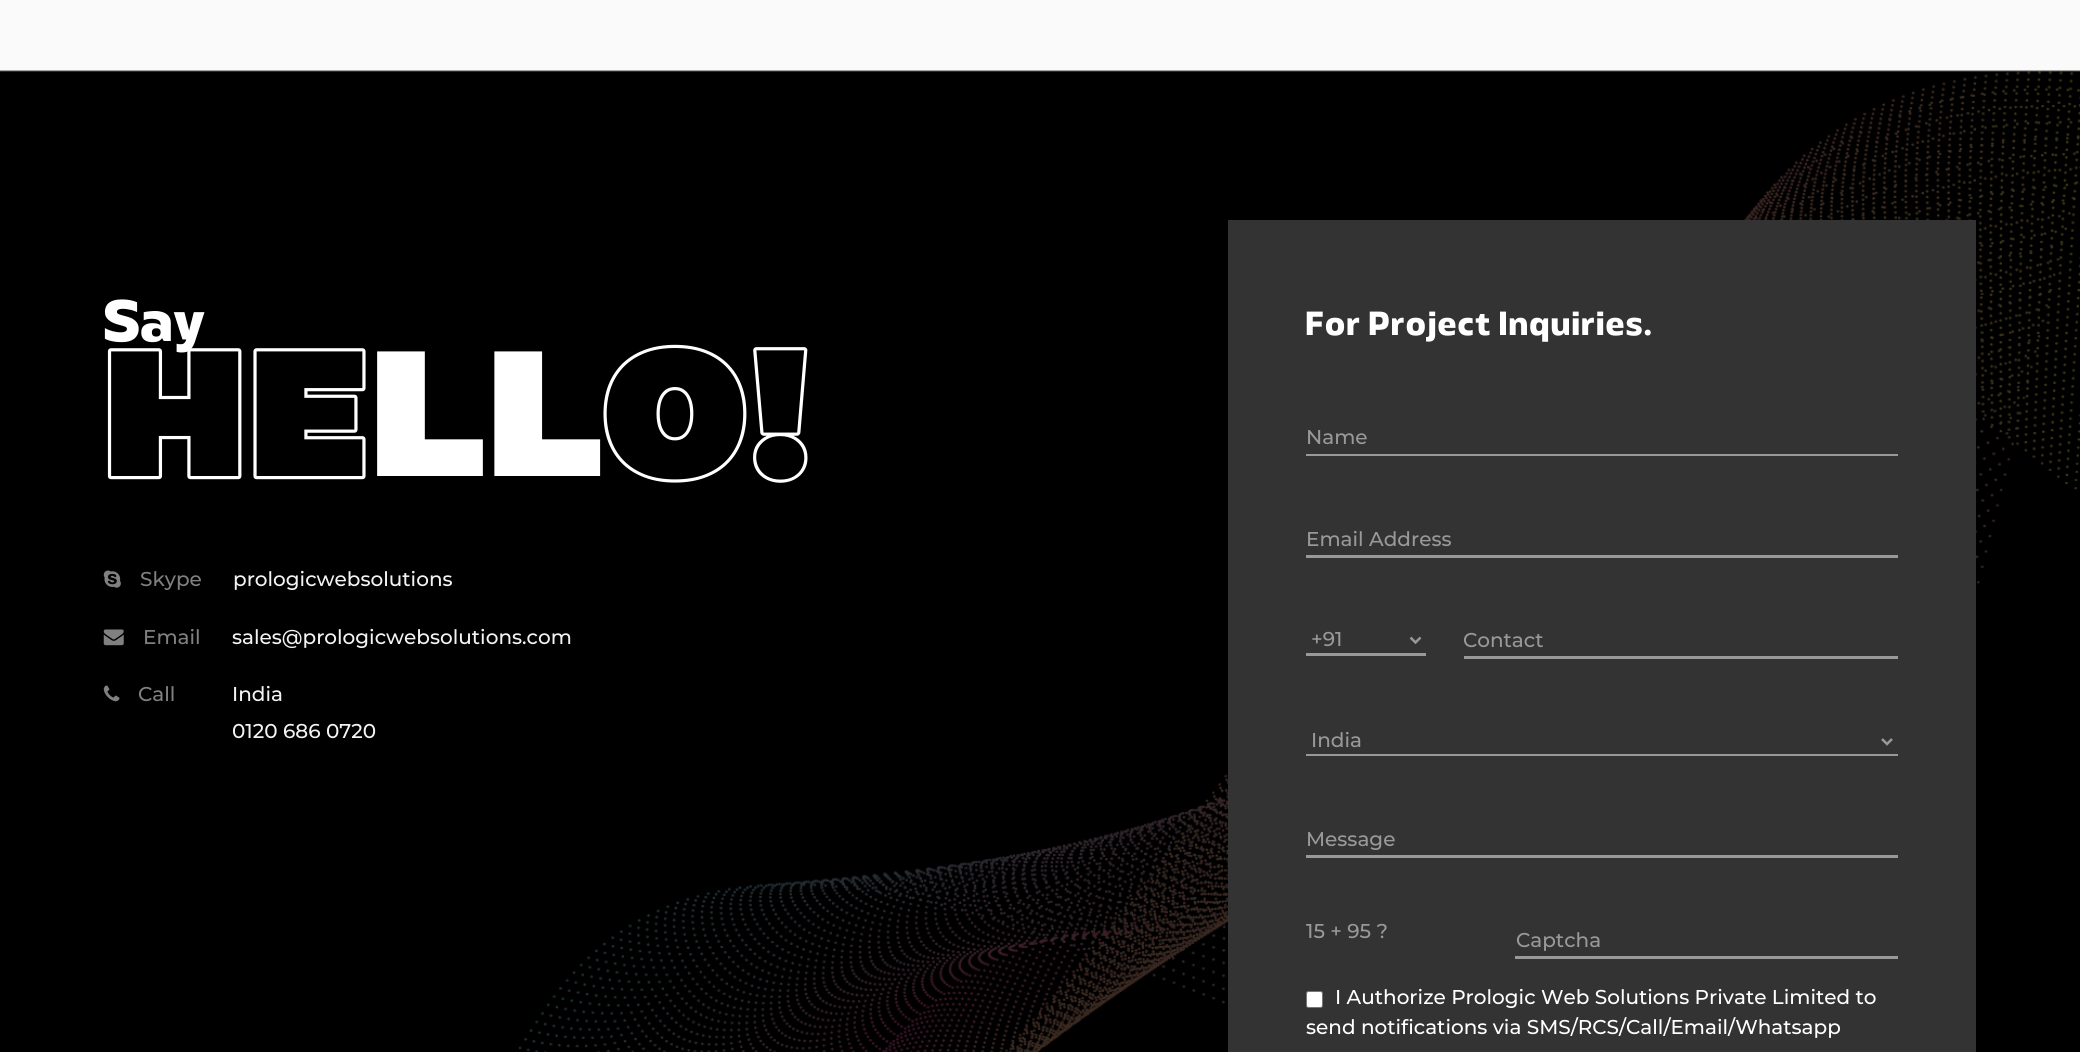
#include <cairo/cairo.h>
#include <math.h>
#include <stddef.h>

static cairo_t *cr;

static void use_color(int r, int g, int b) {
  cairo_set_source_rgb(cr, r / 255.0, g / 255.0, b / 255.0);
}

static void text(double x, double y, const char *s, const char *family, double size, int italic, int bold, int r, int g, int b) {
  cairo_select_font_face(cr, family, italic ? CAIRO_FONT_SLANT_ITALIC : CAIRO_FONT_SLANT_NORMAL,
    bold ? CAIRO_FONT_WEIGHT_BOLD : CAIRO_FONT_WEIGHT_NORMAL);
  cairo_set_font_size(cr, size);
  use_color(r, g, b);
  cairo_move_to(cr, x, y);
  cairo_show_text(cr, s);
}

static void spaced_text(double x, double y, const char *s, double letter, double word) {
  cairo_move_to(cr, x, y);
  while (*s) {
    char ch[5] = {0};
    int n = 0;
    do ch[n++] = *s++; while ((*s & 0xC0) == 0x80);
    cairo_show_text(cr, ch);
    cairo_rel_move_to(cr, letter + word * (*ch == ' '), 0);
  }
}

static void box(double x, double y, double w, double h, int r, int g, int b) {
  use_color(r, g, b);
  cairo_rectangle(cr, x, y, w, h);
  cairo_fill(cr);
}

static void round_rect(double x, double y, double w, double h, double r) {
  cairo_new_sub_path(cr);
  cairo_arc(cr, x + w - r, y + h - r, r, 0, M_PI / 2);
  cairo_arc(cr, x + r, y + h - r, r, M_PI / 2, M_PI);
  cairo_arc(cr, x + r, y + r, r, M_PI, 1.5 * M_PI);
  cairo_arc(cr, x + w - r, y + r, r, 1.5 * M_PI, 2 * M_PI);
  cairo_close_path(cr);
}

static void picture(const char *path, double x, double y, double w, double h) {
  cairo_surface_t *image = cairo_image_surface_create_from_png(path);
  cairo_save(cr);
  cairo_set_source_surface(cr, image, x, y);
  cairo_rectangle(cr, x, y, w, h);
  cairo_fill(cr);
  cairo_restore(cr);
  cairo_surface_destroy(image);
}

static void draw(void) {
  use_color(255, 255, 255);
  cairo_paint(cr);
  box(0, 0, 2080, 70, 250, 250, 251);
  picture("img_01.png", 0, 70, 2080, 982);
  picture("img_02.png", 103, 570, 18, 18);
  picture("img_03.png", 103, 629, 21, 17);
  picture("img_04.png", 103, 685, 17, 17);
  box(1228, 220, 748, 832, 51, 51, 51);
  box(1306, 454, 592, 2, 153, 153, 153);
  box(1306, 555, 592, 3, 153, 153, 153);
  box(1306, 653, 120, 3, 153, 153, 153);
  cairo_new_path(cr);
  cairo_move_to(cr, 1410.5, 637.5);
  cairo_line_to(cr, 1415.5, 642.5);
  cairo_line_to(cr, 1420.5, 637.5);
  cairo_set_line_width(cr, 2.5);
  cairo_stroke(cr);
  box(1464, 656, 434, 3, 153, 153, 153);
  box(1306, 754, 592, 2, 153, 153, 153);
  cairo_new_path(cr);
  cairo_move_to(cr, 1882, 739);
  cairo_line_to(cr, 1887, 744);
  cairo_line_to(cr, 1892, 739);
  cairo_stroke(cr);
  box(1306, 855, 592, 3, 153, 153, 153);
  box(1515, 956, 383, 3, 153, 153, 153);
  use_color(255, 255, 255);
  round_rect(1306.5, 991.5, 16, 16, 2);
  cairo_fill_preserve(cr);
  use_color(118, 118, 118);
  cairo_set_line_width(cr, 1);
  cairo_stroke(cr);
  text(104, 341, "Say", "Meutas", 52, 0, 1, 255, 255, 255);
  cairo_select_font_face(cr, "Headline", CAIRO_FONT_SLANT_NORMAL, CAIRO_FONT_WEIGHT_NORMAL);
  cairo_set_font_size(cr, 178);
  spaced_text(104, 476, "He", 4, 0);
  cairo_select_font_face(cr, "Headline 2", CAIRO_FONT_SLANT_NORMAL, CAIRO_FONT_WEIGHT_NORMAL);
  spaced_text(370, 476, "ll", 4, 0);
  cairo_select_font_face(cr, "Headline", CAIRO_FONT_SLANT_NORMAL, CAIRO_FONT_WEIGHT_NORMAL);
  spaced_text(604, 476, "o!", 4, 0);
  text(140, 586, "Skype", "Montserrat Thin", 20, 0, 0, 128, 128, 128);
  text(233, 586, "prologicwebsolutions", "Montserrat Thin", 20, 0, 0, 243, 243, 243);
  text(143, 644, "Email", "Montserrat Thin", 20, 0, 0, 128, 128, 128);
  text(232, 644, "sales@prologicwebsolutions.com", "Montserrat Thin", 20, 0, 0, 243, 243, 243);
  text(138, 701, "Call", "Montserrat Thin", 20, 0, 0, 128, 128, 128);
  text(232, 701, "India", "Montserrat Thin", 20, 0, 0, 243, 243, 243);
  text(232, 738, "0120 686 0720", "Montserrat Thin", 20, 0, 0, 243, 243, 243);
  cairo_select_font_face(cr, "Meutas", CAIRO_FONT_SLANT_NORMAL, CAIRO_FONT_WEIGHT_BOLD);
  cairo_set_font_size(cr, 30);
  use_color(255, 255, 255);
  spaced_text(1306, 335, "For Project Inquiries.", 1.25, 0);
  text(1306, 444, "Name", "Montserrat Thin", 20, 0, 0, 153, 153, 153);
  text(1306, 546, "Email Address", "Montserrat Thin", 20, 0, 0, 153, 153, 153);
  text(1311, 646, "+91", "Montserrat Thin", 20, 0, 0, 153, 153, 153);
  text(1463, 647, "Contact", "Montserrat Thin", 20, 0, 0, 153, 153, 153);
  text(1311, 747, "India", "Montserrat Thin", 20, 0, 0, 153, 153, 153);
  text(1306, 846, "Message", "Montserrat Thin", 20, 0, 0, 153, 153, 153);
  text(1306, 938, "15 + 95 ?", "Montserrat Thin", 20, 0, 0, 153, 153, 153);
  text(1516, 947, "Captcha", "Montserrat Thin", 20, 0, 0, 153, 153, 153);
  text(1335, 1004, "I Authorize Prologic Web Solutions Private Limited to", "Montserrat Thin", 20, 0, 0, 255, 255, 255);
  text(1306, 1034, "send notifications via SMS/RCS/Call/Email/Whatsapp", "Montserrat Thin", 20, 0, 0, 255, 255, 255);
}

int main(void) {
  cairo_surface_t *surface = cairo_image_surface_create(CAIRO_FORMAT_RGB24, 2080, 1052);
  cr = cairo_create(surface);
  cairo_font_options_t *options = cairo_font_options_create();
  cairo_font_options_set_hint_metrics(options, CAIRO_HINT_METRICS_OFF);
  cairo_font_options_set_hint_style(options, CAIRO_HINT_STYLE_NONE);
  cairo_set_font_options(cr, options);
  cairo_set_miter_limit(cr, 4);
  draw();
  cairo_surface_write_to_png(surface, "out.png");
  cairo_font_options_destroy(options);
  cairo_destroy(cr);
  cairo_surface_destroy(surface);
  return 0;
}
